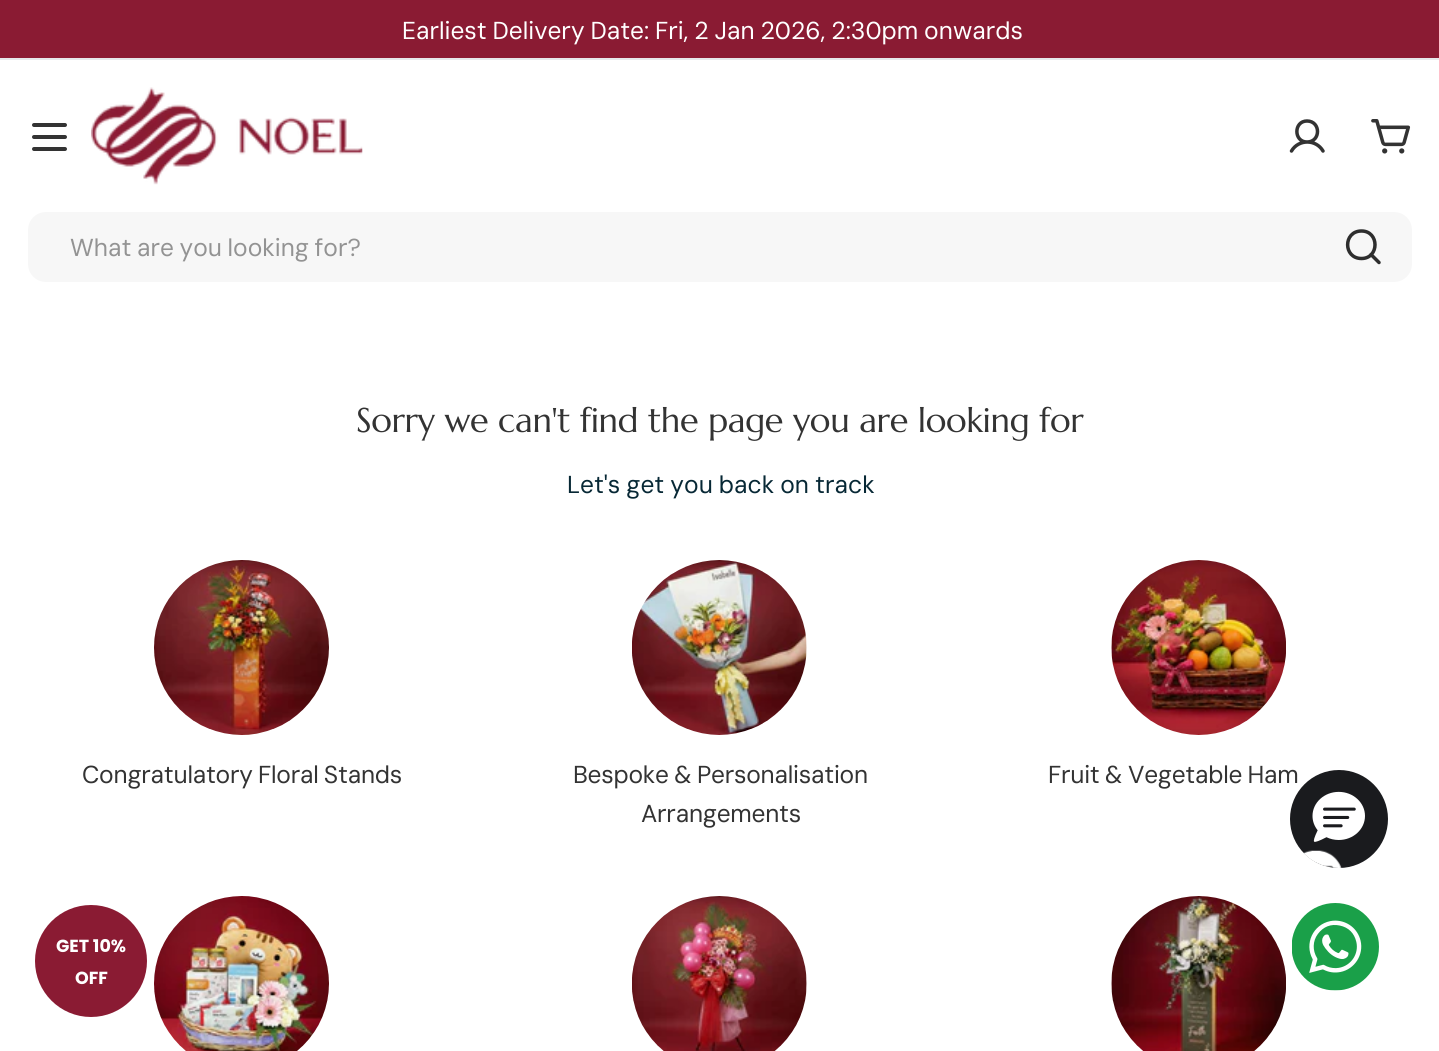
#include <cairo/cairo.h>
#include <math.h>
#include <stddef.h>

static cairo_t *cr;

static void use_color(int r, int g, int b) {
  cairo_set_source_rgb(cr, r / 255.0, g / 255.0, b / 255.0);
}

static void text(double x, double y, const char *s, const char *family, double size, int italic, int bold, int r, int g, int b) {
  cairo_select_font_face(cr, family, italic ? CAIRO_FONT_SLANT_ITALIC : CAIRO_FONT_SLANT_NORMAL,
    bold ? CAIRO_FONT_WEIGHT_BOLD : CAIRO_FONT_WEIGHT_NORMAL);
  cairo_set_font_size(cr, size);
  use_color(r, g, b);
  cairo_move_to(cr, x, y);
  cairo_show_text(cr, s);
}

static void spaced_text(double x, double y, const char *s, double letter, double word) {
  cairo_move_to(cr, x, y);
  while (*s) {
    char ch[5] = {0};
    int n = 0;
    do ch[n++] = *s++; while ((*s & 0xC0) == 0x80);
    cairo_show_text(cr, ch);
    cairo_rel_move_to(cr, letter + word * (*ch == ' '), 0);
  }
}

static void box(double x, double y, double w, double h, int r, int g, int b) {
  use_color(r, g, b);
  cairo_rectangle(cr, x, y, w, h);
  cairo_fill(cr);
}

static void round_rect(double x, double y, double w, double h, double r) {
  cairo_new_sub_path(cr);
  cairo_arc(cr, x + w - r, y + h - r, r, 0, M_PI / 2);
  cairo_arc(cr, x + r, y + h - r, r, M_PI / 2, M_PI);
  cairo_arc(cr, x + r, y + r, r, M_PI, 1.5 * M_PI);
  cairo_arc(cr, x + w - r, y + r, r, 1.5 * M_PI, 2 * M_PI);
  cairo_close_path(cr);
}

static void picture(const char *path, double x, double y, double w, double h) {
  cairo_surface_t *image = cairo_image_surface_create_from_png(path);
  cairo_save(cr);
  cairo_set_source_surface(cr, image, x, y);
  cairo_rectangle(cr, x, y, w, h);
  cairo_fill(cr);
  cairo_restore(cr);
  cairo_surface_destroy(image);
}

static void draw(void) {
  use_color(255, 255, 255);
  cairo_paint(cr);
  box(0, 0, 1439, 58, 138, 27, 51);
  box(0, 58, 1439, 2, 230, 233, 235);
  use_color(51, 51, 51);
  round_rect(32, 135, 35, 4, 2);
  cairo_fill(cr);
  round_rect(32, 123, 35, 4, 2);
  cairo_fill(cr);
  round_rect(32, 147, 35, 4, 2);
  cairo_fill(cr);
  picture("img_01.png", 91, 87, 272, 98);
  cairo_new_path(cr);
  cairo_move_to(cr, 1307, 142);
  cairo_curve_to(cr, 1321, 142, 1321, 121, 1307, 121);
  cairo_curve_to(cr, 1293.5, 121, 1293.5, 142, 1307, 142);
  cairo_close_path(cr);
  cairo_move_to(cr, 1291.5, 151);
  cairo_curve_to(cr, 1298.5, 139, 1316, 139, 1323, 151);
  cairo_set_line_width(cr, 3.5);
  cairo_set_line_cap(cr, CAIRO_LINE_CAP_ROUND);
  cairo_set_line_join(cr, CAIRO_LINE_JOIN_ROUND);
  cairo_stroke(cr);
  picture("img_02.png", 1371, 119, 40, 35);
  use_color(247, 247, 247);
  round_rect(28, 212, 1384, 70, 18);
  cairo_fill(cr);
  cairo_new_path(cr);
  cairo_move_to(cr, 1361.5, 258.5);
  cairo_curve_to(cr, 1379.5, 258.5, 1379.5, 231, 1361.5, 231);
  cairo_curve_to(cr, 1343, 231, 1343, 258.5, 1361.5, 258.5);
  cairo_close_path(cr);
  cairo_move_to(cr, 1371, 254.5);
  cairo_line_to(cr, 1379, 262.5);
  use_color(46, 46, 46);
  cairo_stroke(cr);
  picture("img_03.png", 154, 560, 175, 175);
  picture("img_04.png", 632, 560, 175, 175);
  picture("img_05.png", 1111, 560, 175, 175);
  picture("img_06.png", 154, 896, 175, 155);
  picture("img_07.png", 632, 896, 175, 155);
  picture("img_08.png", 1111, 896, 175, 155);
  use_color(138, 27, 51);
  cairo_arc(cr, 91, 961, 56, 0, 2 * M_PI);
  cairo_fill(cr);
  picture("img_11.png", 1292, 903, 87, 88);
  cairo_select_font_face(cr, "DM Sans", CAIRO_FONT_SLANT_NORMAL, CAIRO_FONT_WEIGHT_NORMAL);
  cairo_set_font_size(cr, 24.5);
  use_color(255, 255, 255);
  spaced_text(402, 39, "Earliest Delivery Date: Fri, 2 Jan 2026, 2:30pm onwards", 0, -0.75);
  use_color(147, 147, 147);
  spaced_text(70, 256, "What are you looking for?", 0, -1);
  cairo_select_font_face(cr, "Marcellus", CAIRO_FONT_SLANT_NORMAL, CAIRO_FONT_WEIGHT_NORMAL);
  cairo_set_font_size(cr, 34.3);
  use_color(51, 51, 51);
  spaced_text(356, 432, "Sorry we can't find the page you are looking for", -0.35, 0);
  cairo_select_font_face(cr, "DM Sans", CAIRO_FONT_SLANT_NORMAL, CAIRO_FONT_WEIGHT_NORMAL);
  cairo_set_font_size(cr, 24.5);
  use_color(7, 40, 53);
  spaced_text(567, 493, "Let's get you back on track", 0, -0.5);
  use_color(51, 51, 51);
  spaced_text(82, 783, "Congratulatory Floral Stands", -0.25, -1);
  spaced_text(573, 783, "Bespoke & Personalisation", -0.25, -1);
  spaced_text(641, 822, "Arrangements", -0.25, 0);
  spaced_text(1048, 783, "Fruit & Vegetable Ham", -0.25, -1);
  use_color(26, 27, 30);
  cairo_new_path(cr);
  cairo_arc(cr, 1339, 819, 49, 0, 2 * M_PI);
  cairo_fill(cr);
  picture("img_09.png", 1312, 791, 53, 51);
  picture("img_10.png", 1303, 850, 39, 18);
  text(56, 952, "GET 10%", "Poppins", 17.5, 0, 1, 255, 255, 255);
  text(75, 984, "OFF", "Poppins", 17.5, 0, 1, 255, 255, 255);
}

int main(void) {
  cairo_surface_t *surface = cairo_image_surface_create(CAIRO_FORMAT_RGB24, 1439, 1051);
  cr = cairo_create(surface);
  cairo_font_options_t *options = cairo_font_options_create();
  cairo_font_options_set_hint_metrics(options, CAIRO_HINT_METRICS_OFF);
  cairo_font_options_set_hint_style(options, CAIRO_HINT_STYLE_NONE);
  cairo_set_font_options(cr, options);
  cairo_set_miter_limit(cr, 4);
  draw();
  cairo_surface_write_to_png(surface, "out.png");
  cairo_font_options_destroy(options);
  cairo_destroy(cr);
  cairo_surface_destroy(surface);
  return 0;
}
